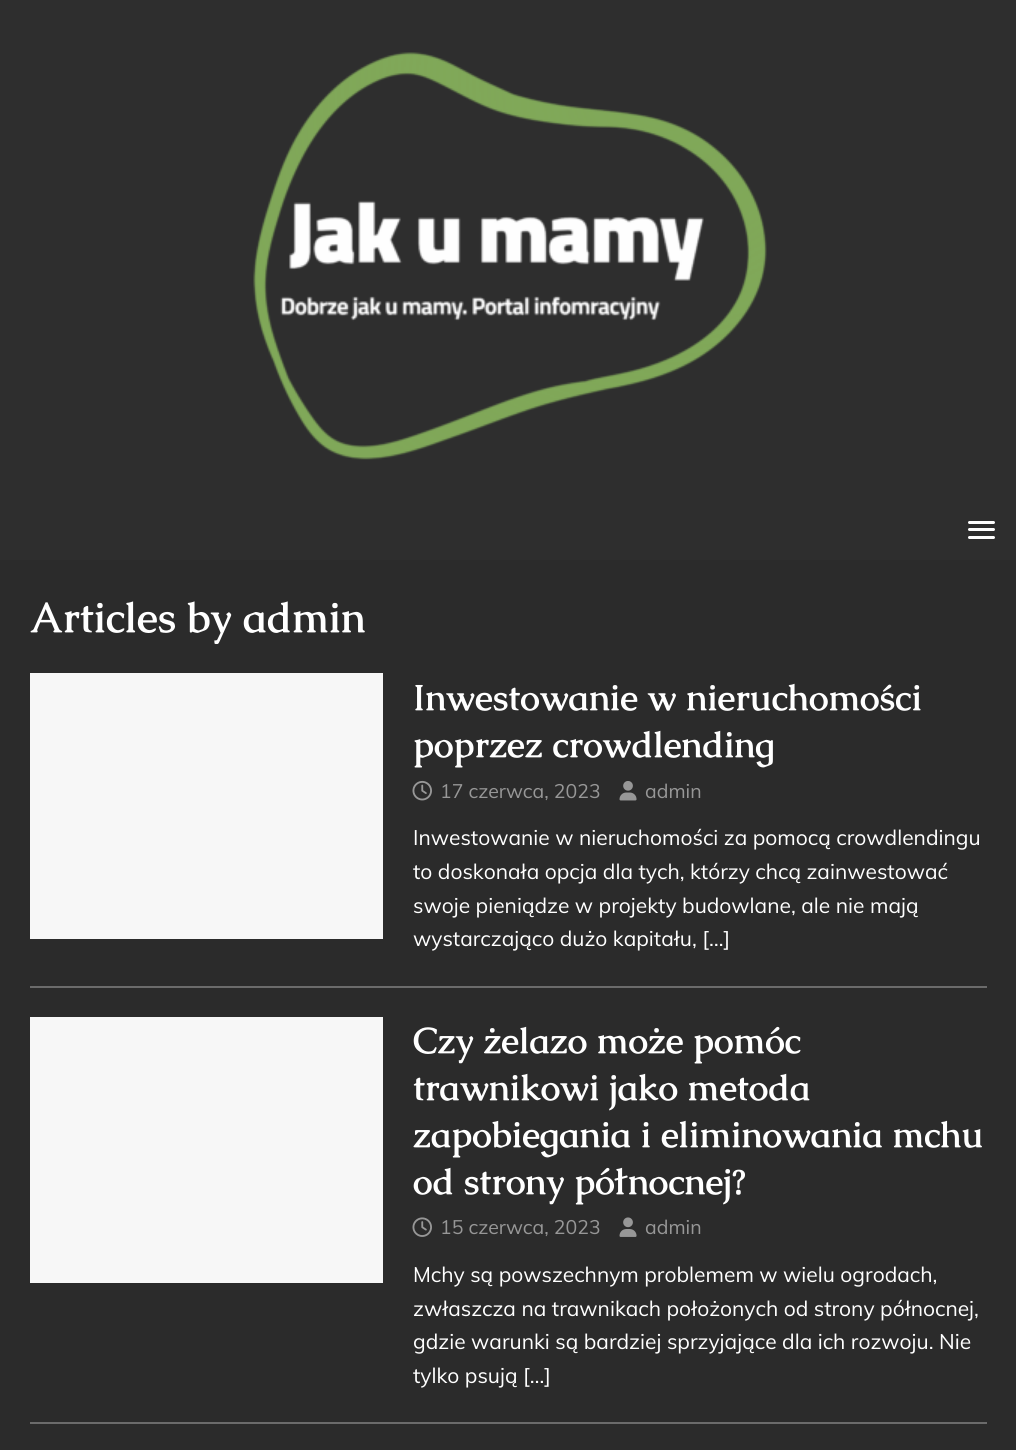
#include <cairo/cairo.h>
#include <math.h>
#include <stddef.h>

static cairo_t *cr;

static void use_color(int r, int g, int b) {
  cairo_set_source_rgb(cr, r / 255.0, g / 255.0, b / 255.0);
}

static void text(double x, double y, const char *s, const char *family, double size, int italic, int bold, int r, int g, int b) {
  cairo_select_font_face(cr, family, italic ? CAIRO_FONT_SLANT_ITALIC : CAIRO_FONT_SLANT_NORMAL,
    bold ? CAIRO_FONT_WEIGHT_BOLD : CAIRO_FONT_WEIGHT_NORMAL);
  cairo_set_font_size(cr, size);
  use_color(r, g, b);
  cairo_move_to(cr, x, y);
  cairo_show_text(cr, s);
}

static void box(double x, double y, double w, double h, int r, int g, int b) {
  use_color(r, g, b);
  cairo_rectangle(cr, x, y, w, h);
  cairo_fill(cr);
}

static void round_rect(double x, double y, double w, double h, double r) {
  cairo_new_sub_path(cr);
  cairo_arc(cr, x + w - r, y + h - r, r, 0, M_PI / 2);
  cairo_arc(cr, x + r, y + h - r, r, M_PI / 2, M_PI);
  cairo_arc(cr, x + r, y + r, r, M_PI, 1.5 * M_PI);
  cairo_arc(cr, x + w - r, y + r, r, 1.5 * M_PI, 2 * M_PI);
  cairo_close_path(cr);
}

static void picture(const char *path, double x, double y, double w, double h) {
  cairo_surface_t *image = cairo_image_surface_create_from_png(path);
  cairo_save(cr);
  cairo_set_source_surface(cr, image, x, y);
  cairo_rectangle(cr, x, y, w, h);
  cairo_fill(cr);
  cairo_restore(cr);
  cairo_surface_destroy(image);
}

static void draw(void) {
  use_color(46, 46, 46);
  cairo_paint(cr);
  picture("img_01.png", 253, 52, 514, 408);
  use_color(255, 255, 255);
  round_rect(968, 521, 27, 3, 1.5);
  cairo_fill(cr);
  round_rect(968, 528, 27, 3, 1.5);
  cairo_fill(cr);
  round_rect(968, 536, 27, 3, 1.5);
  cairo_fill(cr);
  box(0, 560, 1016, 890, 43, 43, 43);
  box(30, 986, 957, 2, 107, 107, 107);
  box(30, 673, 353, 266, 247, 247, 247);
  picture("img_02.png", 412, 780, 20, 21);
  picture("img_03.png", 619, 781, 18, 20);
  box(30, 1422, 957, 2, 107, 107, 107);
  box(30, 1017, 353, 266, 247, 247, 247);
  picture("img_04.png", 412, 1217, 20, 20);
  picture("img_05.png", 619, 1217, 18, 20);
  text(30, 632, "Articles by admin", "Caudex", 42, 0, 1, 255, 255, 255);
  text(413, 710, "Inwestowanie w nieruchomości", "Caudex", 36, 0, 1, 255, 255, 255);
  text(413, 757, "poprzez crowdlending", "Caudex", 36, 0, 1, 255, 255, 255);
  text(440, 798, "17 czerwca, 2023", "Muli", 19.5, 0, 0, 151, 151, 151);
  text(645, 798, "admin", "Muli", 19.5, 0, 0, 151, 151, 151);
  text(413, 845, "Inwestowanie w nieruchomości za pomocą crowdlendingu", "Muli", 21, 0, 0, 255, 255, 255);
  text(413, 879, "to doskonała opcja dla tych, którzy chcą zainwestować", "Muli", 21, 0, 0, 255, 255, 255);
  text(413, 913, "swoje pieniądze w projekty budowlane, ale nie mają", "Muli", 21, 0, 0, 255, 255, 255);
  text(413, 946, "wystarczająco dużo kapitału, […]", "Muli", 21, 0, 0, 255, 255, 255);
  text(413, 1053, "Czy żelazo może pomóc", "Caudex", 36, 0, 1, 255, 255, 255);
  text(413, 1100, "trawnikowi jako metoda", "Caudex", 36, 0, 1, 255, 255, 255);
  text(413, 1147, "zapobiegania i eliminowania mchu", "Caudex", 36, 0, 1, 255, 255, 255);
  text(413, 1194, "od strony północnej?", "Caudex", 36, 0, 1, 255, 255, 255);
  text(440, 1234, "15 czerwca, 2023", "Muli", 19.5, 0, 0, 151, 151, 151);
  text(645, 1234, "admin", "Muli", 19.5, 0, 0, 151, 151, 151);
  text(413, 1282, "Mchy są powszechnym problemem w wielu ogrodach,", "Muli", 21, 0, 0, 255, 255, 255);
  text(413, 1316, "zwłaszcza na trawnikach położonych od strony północnej,", "Muli", 21, 0, 0, 255, 255, 255);
  text(413, 1349, "gdzie warunki są bardziej sprzyjające dla ich rozwoju. Nie", "Muli", 21, 0, 0, 255, 255, 255);
  text(413, 1383, "tylko psują […]", "Muli", 21, 0, 0, 255, 255, 255);
}

int main(void) {
  cairo_surface_t *surface = cairo_image_surface_create(CAIRO_FORMAT_RGB24, 1016, 1450);
  cr = cairo_create(surface);
  cairo_font_options_t *options = cairo_font_options_create();
  cairo_font_options_set_hint_metrics(options, CAIRO_HINT_METRICS_OFF);
  cairo_font_options_set_hint_style(options, CAIRO_HINT_STYLE_NONE);
  cairo_set_font_options(cr, options);
  cairo_set_miter_limit(cr, 4);
  draw();
  cairo_surface_write_to_png(surface, "out.png");
  cairo_font_options_destroy(options);
  cairo_destroy(cr);
  cairo_surface_destroy(surface);
  return 0;
}
